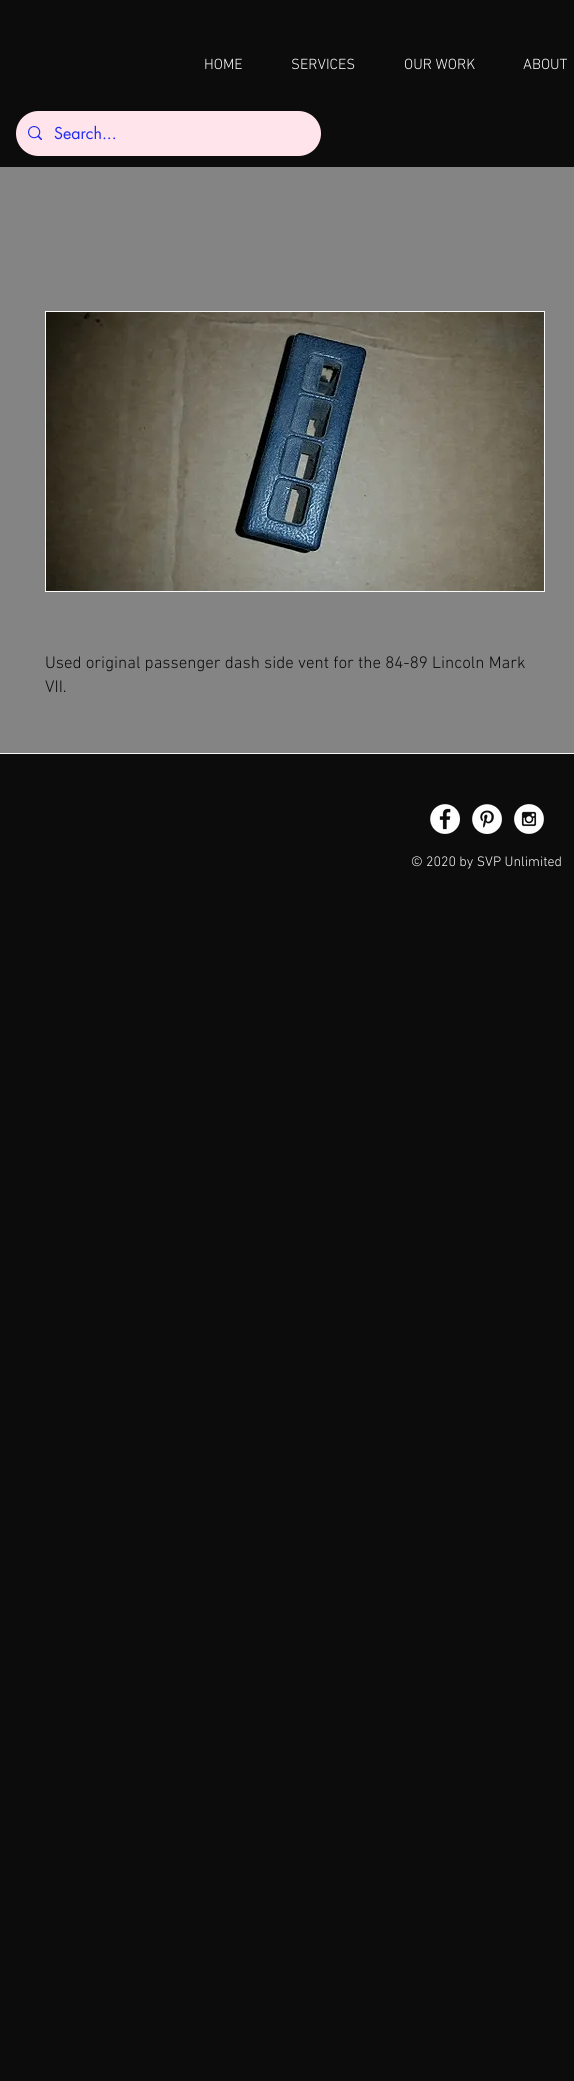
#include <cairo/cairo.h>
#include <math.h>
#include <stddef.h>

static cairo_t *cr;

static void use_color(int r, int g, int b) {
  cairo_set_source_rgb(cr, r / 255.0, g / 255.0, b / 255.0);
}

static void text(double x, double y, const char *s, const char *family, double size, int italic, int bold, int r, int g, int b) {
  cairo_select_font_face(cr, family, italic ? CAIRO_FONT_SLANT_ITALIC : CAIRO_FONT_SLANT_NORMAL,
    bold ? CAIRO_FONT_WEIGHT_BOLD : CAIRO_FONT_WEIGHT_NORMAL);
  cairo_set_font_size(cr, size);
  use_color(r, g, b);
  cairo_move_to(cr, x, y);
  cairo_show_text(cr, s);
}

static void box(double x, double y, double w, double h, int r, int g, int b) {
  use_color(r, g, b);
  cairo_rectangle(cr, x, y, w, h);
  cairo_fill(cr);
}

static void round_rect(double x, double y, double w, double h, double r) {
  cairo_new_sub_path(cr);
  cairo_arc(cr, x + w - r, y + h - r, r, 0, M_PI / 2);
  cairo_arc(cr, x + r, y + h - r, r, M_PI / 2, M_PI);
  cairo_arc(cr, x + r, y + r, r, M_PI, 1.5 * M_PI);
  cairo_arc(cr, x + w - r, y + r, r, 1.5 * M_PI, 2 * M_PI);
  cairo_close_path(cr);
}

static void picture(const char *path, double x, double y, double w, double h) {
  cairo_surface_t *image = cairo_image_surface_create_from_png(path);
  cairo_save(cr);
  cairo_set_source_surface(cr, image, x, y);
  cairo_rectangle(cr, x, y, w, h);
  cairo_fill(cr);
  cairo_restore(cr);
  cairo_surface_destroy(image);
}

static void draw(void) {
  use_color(12, 12, 12);
  cairo_paint(cr);
  use_color(255, 228, 236);
  round_rect(16, 111, 305, 45, 22.5);
  cairo_fill(cr);
  picture("img_01.png", 28, 126, 14, 14);
  box(0, 167, 574, 586, 132, 132, 132);
  cairo_rectangle(cr, 45.5, 311.5, 499, 280);
  use_color(250, 250, 250);
  cairo_set_line_width(cr, 1);
  cairo_stroke(cr);
  picture("img_02.png", 46, 312, 498, 279);
  box(0, 753, 574, 1, 250, 250, 250);
  picture("img_03.png", 430, 804, 30, 30);
  picture("img_04.png", 472, 804, 30, 30);
  picture("img_05.png", 514, 804, 30, 30);
  text(204, 69, "HOME", "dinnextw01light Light", 15, 0, 0, 250, 250, 250);
  text(291, 69, "SERVICES", "dinnextw01light Light", 15, 0, 0, 250, 250, 250);
  text(404, 69, "OUR WORK", "dinnextw01light Light", 15, 0, 0, 250, 250, 250);
  text(523, 69, "ABOUT", "dinnextw01light Light", 15, 0, 0, 250, 250, 250);
  text(54, 139, "Search...", "futura", 16, 0, 0, 31, 43, 243);
  text(45, 668, "Used original passenger dash side vent for the 84-89 Lincoln Mark", "dinnextw01light Light", 17, 0, 0, 12, 12, 12);
  text(45, 692, "VII.", "dinnextw01light Light", 17, 0, 0, 12, 12, 12);
  text(411, 866, "© 2020 by SVP Unlimited", "dinnextw01light Light", 14, 0, 0, 250, 250, 250);
}

int main(void) {
  cairo_surface_t *surface = cairo_image_surface_create(CAIRO_FORMAT_RGB24, 574, 2081);
  cr = cairo_create(surface);
  cairo_font_options_t *options = cairo_font_options_create();
  cairo_font_options_set_hint_metrics(options, CAIRO_HINT_METRICS_OFF);
  cairo_font_options_set_hint_style(options, CAIRO_HINT_STYLE_NONE);
  cairo_set_font_options(cr, options);
  cairo_set_miter_limit(cr, 4);
  draw();
  cairo_surface_write_to_png(surface, "out.png");
  cairo_font_options_destroy(options);
  cairo_destroy(cr);
  cairo_surface_destroy(surface);
  return 0;
}
